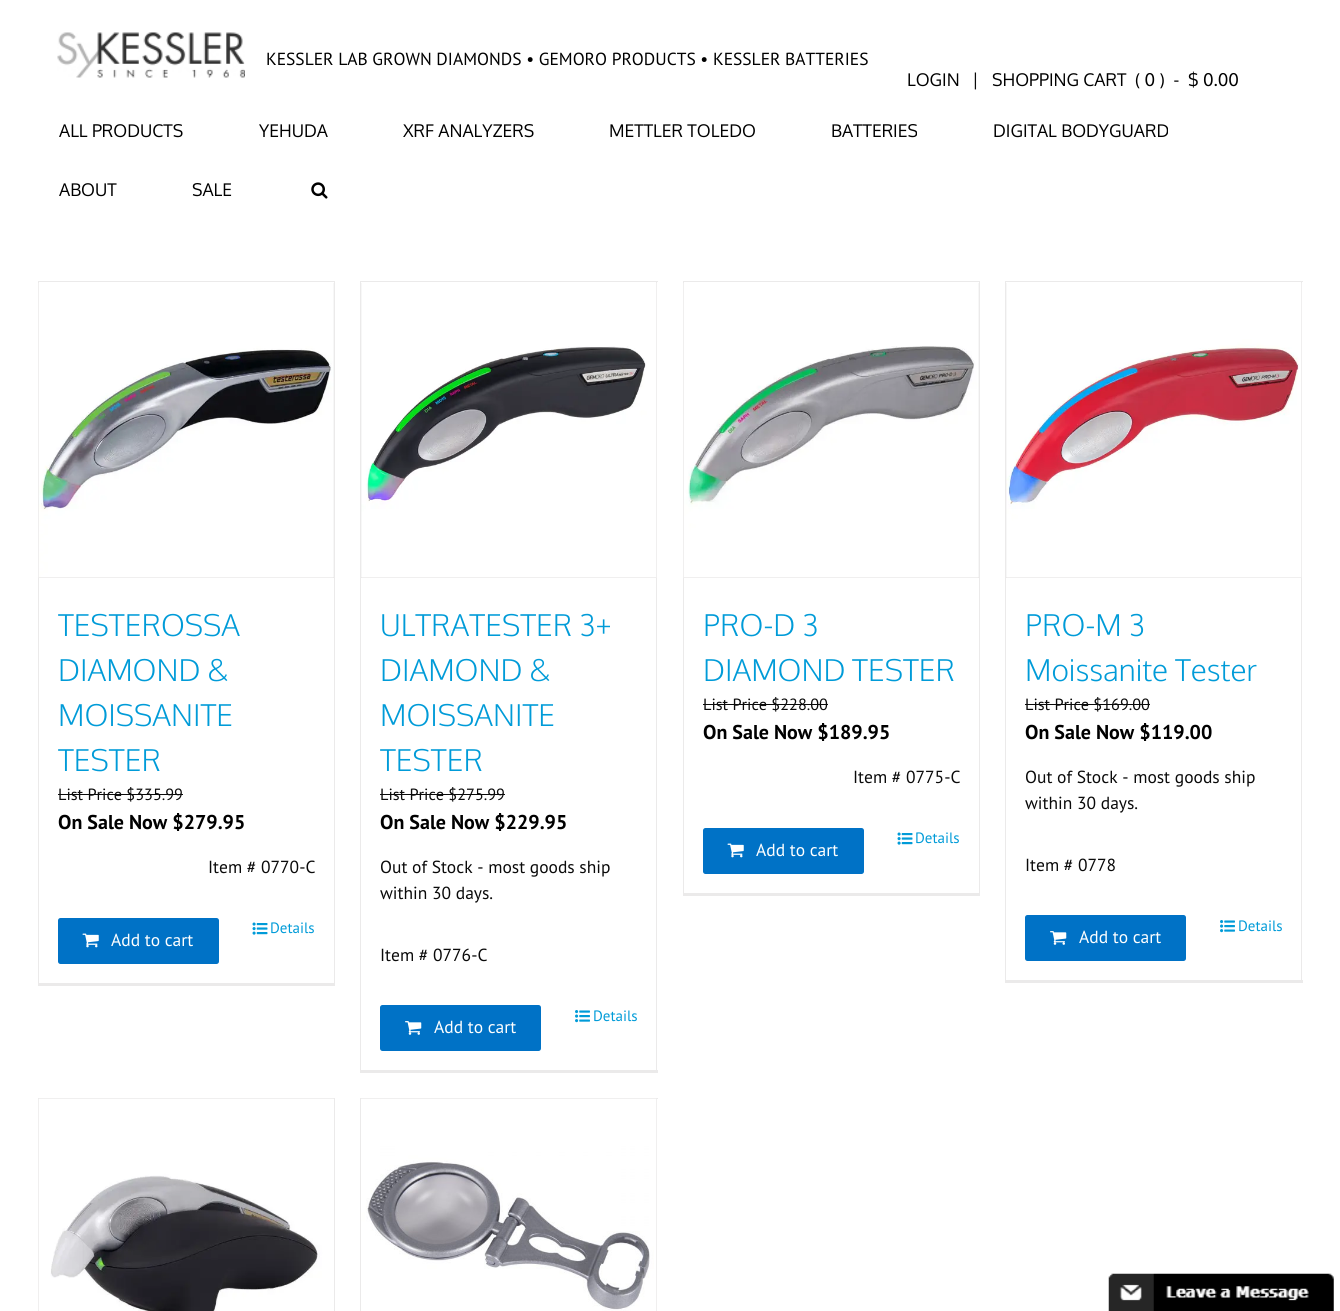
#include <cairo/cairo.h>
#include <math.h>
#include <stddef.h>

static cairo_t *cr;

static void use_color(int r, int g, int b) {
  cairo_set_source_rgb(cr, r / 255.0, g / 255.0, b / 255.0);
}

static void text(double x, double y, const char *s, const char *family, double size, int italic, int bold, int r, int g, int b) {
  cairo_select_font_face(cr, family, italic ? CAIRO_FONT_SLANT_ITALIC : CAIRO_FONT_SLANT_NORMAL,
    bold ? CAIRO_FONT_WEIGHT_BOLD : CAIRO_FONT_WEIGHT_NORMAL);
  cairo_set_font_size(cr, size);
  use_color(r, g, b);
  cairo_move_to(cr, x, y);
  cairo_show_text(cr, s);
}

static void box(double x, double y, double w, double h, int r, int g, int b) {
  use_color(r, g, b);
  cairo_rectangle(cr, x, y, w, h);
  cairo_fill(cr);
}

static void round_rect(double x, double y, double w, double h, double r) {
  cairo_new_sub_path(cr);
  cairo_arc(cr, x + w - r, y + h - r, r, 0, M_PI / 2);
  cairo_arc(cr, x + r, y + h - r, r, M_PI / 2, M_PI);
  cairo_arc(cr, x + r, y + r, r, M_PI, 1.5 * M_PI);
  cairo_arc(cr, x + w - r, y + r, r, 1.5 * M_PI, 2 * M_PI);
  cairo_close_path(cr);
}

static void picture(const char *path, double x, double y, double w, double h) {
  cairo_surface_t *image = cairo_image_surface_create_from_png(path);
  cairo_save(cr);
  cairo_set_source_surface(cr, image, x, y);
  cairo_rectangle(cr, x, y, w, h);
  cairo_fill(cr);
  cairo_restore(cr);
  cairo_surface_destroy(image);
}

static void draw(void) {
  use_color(255, 255, 255);
  cairo_paint(cr);
  picture("img_01.png", 57, 32, 188, 46);
  picture("img_02.png", 311, 182, 17, 17);
  box(38, 281, 297, 1, 235, 234, 234);
  box(334, 281, 1, 704, 235, 234, 234);
  box(38, 983, 297, 3, 235, 234, 234);
  box(38, 281, 1, 704, 235, 234, 234);
  box(39, 283, 295, 295, 224, 222, 222);
  picture("img_03.png", 38, 283, 296, 295);
  box(58, 794, 125, 1, 10, 10, 10);
  picture("img_04.png", 252, 922, 16, 13);
  use_color(0, 114, 198);
  round_rect(58, 918, 161, 46, 2.5);
  cairo_fill(cr);
  picture("img_05.png", 82, 933, 17, 15);
  box(360, 281, 298, 1, 235, 234, 234);
  box(656, 281, 1, 792, 235, 234, 234);
  box(360, 1070, 298, 3, 235, 234, 234);
  box(360, 281, 1, 792, 235, 234, 234);
  box(361, 283, 295, 295, 224, 222, 222);
  picture("img_06.png", 361, 283, 296, 295);
  box(380, 794, 125, 1, 10, 10, 10);
  picture("img_07.png", 575, 1010, 15, 13);
  use_color(0, 114, 198);
  round_rect(380, 1005, 161, 46, 2.5);
  cairo_fill(cr);
  picture("img_08.png", 405, 1021, 17, 14);
  box(683, 281, 297, 1, 235, 234, 234);
  box(979, 281, 1, 614, 235, 234, 234);
  box(683, 893, 297, 3, 235, 234, 234);
  box(683, 281, 1, 614, 235, 234, 234);
  box(684, 283, 295, 295, 224, 222, 222);
  picture("img_09.png", 683, 283, 296, 295);
  box(703, 704, 125, 1, 10, 10, 10);
  picture("img_04.png", 897, 832, 16, 13);
  use_color(0, 114, 198);
  round_rect(703, 828, 161, 46, 2.5);
  cairo_fill(cr);
  picture("img_05.png", 727, 843, 17, 15);
  box(1005, 281, 298, 1, 235, 234, 234);
  box(1301, 281, 1, 702, 235, 234, 234);
  box(1005, 980, 298, 3, 235, 234, 234);
  box(1005, 281, 1, 702, 235, 234, 234);
  box(1006, 283, 295, 295, 224, 222, 222);
  picture("img_10.png", 1006, 283, 296, 295);
  box(1025, 704, 125, 1, 10, 10, 10);
  picture("img_07.png", 1220, 920, 15, 13);
  use_color(0, 114, 198);
  round_rect(1025, 915, 161, 46, 2.5);
  cairo_fill(cr);
  picture("img_08.png", 1050, 931, 17, 14);
  box(38, 1098, 297, 1, 235, 234, 234);
  box(334, 1098, 1, 213, 235, 234, 234);
  box(38, 1098, 1, 213, 235, 234, 234);
  picture("img_11.png", 38, 1098, 296, 213);
  box(360, 1098, 298, 1, 235, 234, 234);
  box(656, 1098, 1, 213, 235, 234, 234);
  box(360, 1098, 1, 213, 235, 234, 234);
  picture("img_12.png", 361, 1098, 296, 213);
  picture("img_13.png", 1108, 1273, 226, 38);
  text(266, 65, "KESSLER LAB GROWN DIAMONDS • GEMORO PRODUCTS • KESSLER BATTERIES", "PT Sans", 17.5, 0, 0, 0, 0, 0);
  text(907, 86, "LOGIN", "Oxygen", 17.5, 0, 0, 0, 0, 0);
  text(972, 86, "|", "Oxygen", 17.5, 0, 0, 10, 10, 10);
  text(992, 86, "SHOPPING CART", "Oxygen", 17.5, 0, 0, 0, 0, 0);
  text(1135, 86, "( 0 )  -  $ 0.00", "Oxygen", 17.5, 0, 0, 0, 0, 0);
  text(59, 137, "ALL PRODUCTS", "Oxygen", 17.5, 0, 0, 0, 0, 0);
  text(259, 137, "YEHUDA", "Oxygen", 17.5, 0, 0, 0, 0, 0);
  text(403, 137, "XRF ANALYZERS", "Oxygen", 17.5, 0, 0, 0, 0, 0);
  text(609, 137, "METTLER TOLEDO", "Oxygen", 17.5, 0, 0, 0, 0, 0);
  text(831, 137, "BATTERIES", "Oxygen", 17.5, 0, 0, 0, 0, 0);
  text(993, 137, "DIGITAL BODYGUARD", "Oxygen", 17.5, 0, 0, 0, 0, 0);
  text(59, 196, "ABOUT", "Oxygen", 17.5, 0, 0, 0, 0, 0);
  text(192, 196, "SALE", "Oxygen", 17.5, 0, 0, 0, 0, 0);
  text(58, 636, "TESTEROSSA", "Oxygen Light", 30, 0, 0, 0, 155, 216);
  text(58, 681, "DIAMOND &", "Oxygen Light", 30, 0, 0, 0, 155, 216);
  text(58, 726, "MOISSANITE", "Oxygen Light", 30, 0, 0, 0, 155, 216);
  text(58, 771, "TESTER", "Oxygen Light", 30, 0, 0, 0, 155, 216);
  text(58, 800, "List Price $335.99", "PT Sans", 16.25, 0, 0, 10, 10, 10);
  text(58, 829, "On Sale Now $279.95", "PT Sans", 20, 0, 1, 0, 0, 0);
  text(208, 873, "Item # 0770-C", "PT Sans", 17.5, 0, 0, 10, 10, 10);
  text(270, 933, "Details", "PT Sans", 15, 0, 0, 0, 155, 216);
  text(111, 946, "Add to cart", "PT Sans", 17.5, 0, 0, 255, 255, 255);
  text(380, 636, "ULTRATESTER 3+", "Oxygen Light", 30, 0, 0, 0, 155, 216);
  text(380, 681, "DIAMOND &", "Oxygen Light", 30, 0, 0, 0, 155, 216);
  text(380, 726, "MOISSANITE", "Oxygen Light", 30, 0, 0, 0, 155, 216);
  text(380, 771, "TESTER", "Oxygen Light", 30, 0, 0, 0, 155, 216);
  text(380, 800, "List Price $275.99", "PT Sans", 16.25, 0, 0, 10, 10, 10);
  text(380, 829, "On Sale Now $229.95", "PT Sans", 20, 0, 1, 0, 0, 0);
  text(380, 873, "Out of Stock - most goods ship", "PT Sans", 17.5, 0, 0, 10, 10, 10);
  text(380, 899, "within 30 days.", "PT Sans", 17.5, 0, 0, 10, 10, 10);
  text(380, 961, "Item # 0776-C", "PT Sans", 17.5, 0, 0, 10, 10, 10);
  text(593, 1021, "Details", "PT Sans", 15, 0, 0, 0, 155, 216);
  text(434, 1033, "Add to cart", "PT Sans", 17.5, 0, 0, 255, 255, 255);
  text(703, 636, "PRO-D 3", "Oxygen Light", 30, 0, 0, 0, 155, 216);
  text(703, 681, "DIAMOND TESTER", "Oxygen Light", 30, 0, 0, 0, 155, 216);
  text(703, 710, "List Price $228.00", "PT Sans", 16.25, 0, 0, 10, 10, 10);
  text(703, 739, "On Sale Now $189.95", "PT Sans", 20, 0, 1, 0, 0, 0);
  text(853, 783, "Item # 0775-C", "PT Sans", 17.5, 0, 0, 10, 10, 10);
  text(915, 843, "Details", "PT Sans", 15, 0, 0, 0, 155, 216);
  text(756, 856, "Add to cart", "PT Sans", 17.5, 0, 0, 255, 255, 255);
  text(1025, 636, "PRO-M 3", "Oxygen Light", 30, 0, 0, 0, 155, 216);
  text(1025, 681, "Moissanite Tester", "Oxygen Light", 30, 0, 0, 0, 155, 216);
  text(1025, 710, "List Price $169.00", "PT Sans", 16.25, 0, 0, 10, 10, 10);
  text(1025, 739, "On Sale Now $119.00", "PT Sans", 20, 0, 1, 0, 0, 0);
  text(1025, 783, "Out of Stock - most goods ship", "PT Sans", 17.5, 0, 0, 10, 10, 10);
  text(1025, 809, "within 30 days.", "PT Sans", 17.5, 0, 0, 10, 10, 10);
  text(1025, 871, "Item # 0778", "PT Sans", 17.5, 0, 0, 10, 10, 10);
  text(1238, 931, "Details", "PT Sans", 15, 0, 0, 0, 155, 216);
  text(1079, 943, "Add to cart", "PT Sans", 17.5, 0, 0, 255, 255, 255);
}

int main(void) {
  cairo_surface_t *surface = cairo_image_surface_create(CAIRO_FORMAT_RGB24, 1340, 1311);
  cr = cairo_create(surface);
  cairo_font_options_t *options = cairo_font_options_create();
  cairo_font_options_set_hint_metrics(options, CAIRO_HINT_METRICS_OFF);
  cairo_font_options_set_hint_style(options, CAIRO_HINT_STYLE_NONE);
  cairo_set_font_options(cr, options);
  cairo_set_miter_limit(cr, 4);
  draw();
  cairo_surface_write_to_png(surface, "out.png");
  cairo_font_options_destroy(options);
  cairo_destroy(cr);
  cairo_surface_destroy(surface);
  return 0;
}
